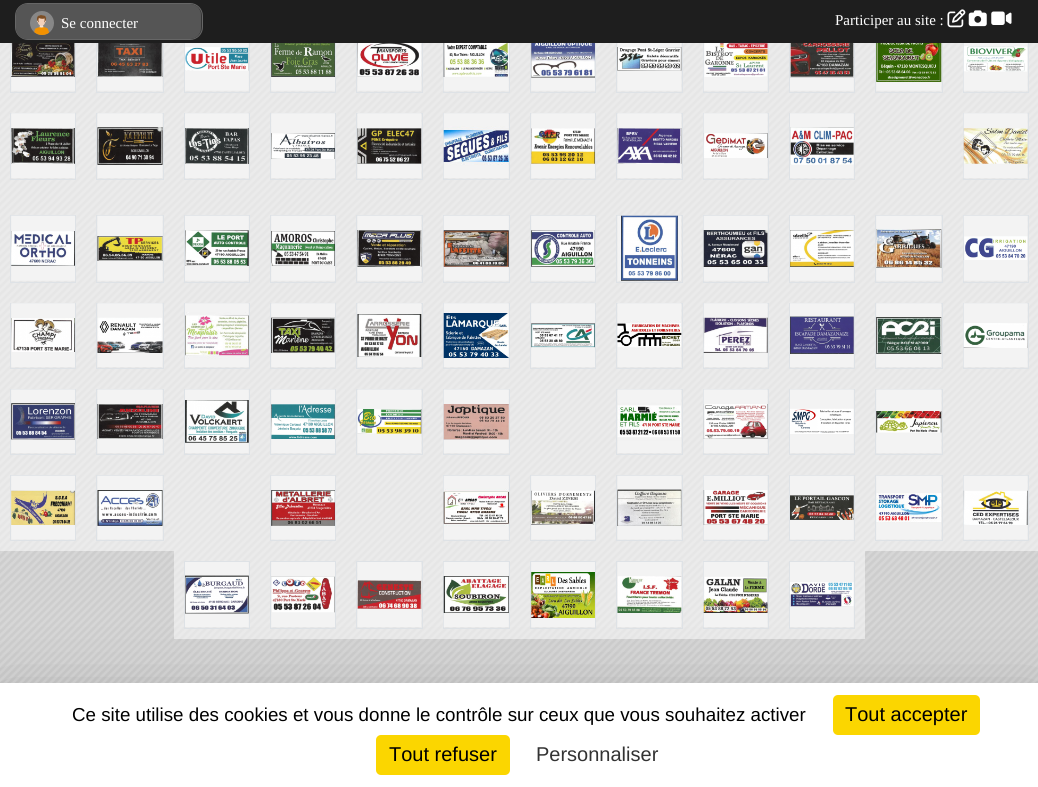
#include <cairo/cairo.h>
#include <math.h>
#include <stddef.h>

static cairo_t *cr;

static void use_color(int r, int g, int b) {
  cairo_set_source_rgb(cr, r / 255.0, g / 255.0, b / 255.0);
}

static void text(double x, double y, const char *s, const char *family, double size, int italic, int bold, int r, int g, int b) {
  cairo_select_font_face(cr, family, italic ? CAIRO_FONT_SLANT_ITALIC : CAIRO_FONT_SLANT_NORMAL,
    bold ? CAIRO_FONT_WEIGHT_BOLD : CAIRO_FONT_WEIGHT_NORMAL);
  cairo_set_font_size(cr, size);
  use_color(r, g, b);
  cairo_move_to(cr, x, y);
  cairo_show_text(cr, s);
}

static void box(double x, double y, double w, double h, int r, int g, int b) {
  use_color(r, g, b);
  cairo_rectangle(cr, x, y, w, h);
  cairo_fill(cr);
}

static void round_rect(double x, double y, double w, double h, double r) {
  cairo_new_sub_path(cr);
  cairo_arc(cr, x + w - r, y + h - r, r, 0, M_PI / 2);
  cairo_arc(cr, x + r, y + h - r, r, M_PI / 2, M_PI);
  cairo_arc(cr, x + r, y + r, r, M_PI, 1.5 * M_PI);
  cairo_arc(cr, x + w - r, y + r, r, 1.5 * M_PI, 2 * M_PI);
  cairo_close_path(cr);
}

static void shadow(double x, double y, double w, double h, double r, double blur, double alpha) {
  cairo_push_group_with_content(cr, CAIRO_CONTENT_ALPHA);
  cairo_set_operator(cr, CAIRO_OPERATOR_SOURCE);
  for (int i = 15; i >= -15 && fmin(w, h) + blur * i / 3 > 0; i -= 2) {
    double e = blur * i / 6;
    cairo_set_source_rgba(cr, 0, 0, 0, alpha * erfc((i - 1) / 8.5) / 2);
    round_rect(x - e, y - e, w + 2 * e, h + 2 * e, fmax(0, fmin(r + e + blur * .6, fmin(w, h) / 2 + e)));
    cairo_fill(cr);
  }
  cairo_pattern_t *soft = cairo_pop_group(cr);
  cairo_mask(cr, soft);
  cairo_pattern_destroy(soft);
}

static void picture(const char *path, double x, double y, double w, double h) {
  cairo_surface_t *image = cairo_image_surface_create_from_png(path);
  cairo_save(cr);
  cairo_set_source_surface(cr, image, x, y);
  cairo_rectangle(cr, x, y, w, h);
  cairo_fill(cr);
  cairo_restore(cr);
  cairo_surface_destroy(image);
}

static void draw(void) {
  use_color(255, 255, 255);
  cairo_paint(cr);
  picture("img_05.png", 0, 43, 1038, 640);
  cairo_set_source_rgba(cr, 1, 1, 1, 0.5);
  cairo_rectangle(cr, 0, 43, 86, 60);
  cairo_fill(cr);
  cairo_rectangle(cr, 10.5, 26.5, 65, 66);
  use_color(222, 226, 230);
  cairo_set_line_width(cr, 1);
  cairo_stroke(cr);
  cairo_set_source_rgba(cr, 1, 1, 1, 0.5);
  cairo_rectangle(cr, 86, 43, 88, 60);
  cairo_fill(cr);
  cairo_rectangle(cr, 96.5, 26.5, 67, 66);
  use_color(222, 226, 230);
  cairo_stroke(cr);
  cairo_set_source_rgba(cr, 1, 1, 1, 0.5);
  cairo_rectangle(cr, 174, 43, 86, 60);
  cairo_fill(cr);
  cairo_rectangle(cr, 184.5, 26.5, 65, 66);
  use_color(222, 226, 230);
  cairo_stroke(cr);
  cairo_set_source_rgba(cr, 1, 1, 1, 0.5);
  cairo_rectangle(cr, 260, 43, 86, 60);
  cairo_fill(cr);
  cairo_rectangle(cr, 270.5, 26.5, 65, 66);
  use_color(222, 226, 230);
  cairo_stroke(cr);
  cairo_set_source_rgba(cr, 1, 1, 1, 0.5);
  cairo_rectangle(cr, 346, 43, 87, 60);
  cairo_fill(cr);
  cairo_rectangle(cr, 356.5, 26.5, 66, 66);
  use_color(222, 226, 230);
  cairo_stroke(cr);
  cairo_set_source_rgba(cr, 1, 1, 1, 0.5);
  cairo_rectangle(cr, 433, 43, 87, 60);
  cairo_fill(cr);
  cairo_rectangle(cr, 443.5, 26.5, 66, 66);
  use_color(222, 226, 230);
  cairo_stroke(cr);
  cairo_set_source_rgba(cr, 1, 1, 1, 0.5);
  cairo_rectangle(cr, 520, 43, 86, 60);
  cairo_fill(cr);
  cairo_rectangle(cr, 530.5, 26.5, 65, 66);
  use_color(222, 226, 230);
  cairo_stroke(cr);
  cairo_set_source_rgba(cr, 1, 1, 1, 0.5);
  cairo_rectangle(cr, 606, 43, 87, 60);
  cairo_fill(cr);
  cairo_rectangle(cr, 616.5, 26.5, 66, 66);
  use_color(222, 226, 230);
  cairo_stroke(cr);
  cairo_set_source_rgba(cr, 1, 1, 1, 0.5);
  cairo_rectangle(cr, 693, 43, 86, 60);
  cairo_fill(cr);
  cairo_rectangle(cr, 703.5, 26.5, 65, 66);
  use_color(222, 226, 230);
  cairo_stroke(cr);
  cairo_set_source_rgba(cr, 1, 1, 1, 0.5);
  cairo_rectangle(cr, 779, 43, 86, 60);
  cairo_fill(cr);
  cairo_rectangle(cr, 789.5, 26.5, 65, 66);
  use_color(222, 226, 230);
  cairo_stroke(cr);
  cairo_set_source_rgba(cr, 1, 1, 1, 0.5);
  cairo_rectangle(cr, 865, 43, 88, 60);
  cairo_fill(cr);
  cairo_rectangle(cr, 875.5, 26.5, 67, 66);
  use_color(222, 226, 230);
  cairo_stroke(cr);
  cairo_set_source_rgba(cr, 1, 1, 1, 0.5);
  cairo_rectangle(cr, 953, 43, 85, 60);
  cairo_fill(cr);
  cairo_rectangle(cr, 963.5, 26.5, 65, 66);
  use_color(222, 226, 230);
  cairo_stroke(cr);
  box(0, 0, 1038, 43, 30, 30, 30);
  use_color(51, 51, 51);
  round_rect(15.5, 3.5, 187, 36, 12.5);
  cairo_fill_preserve(cr);
  use_color(102, 102, 102);
  cairo_stroke(cr);
  use_color(85, 85, 85);
  round_rect(16, 4, 185, 35, 11);
  cairo_fill(cr);
  picture("img_01.png", 30, 11, 24, 24);
  picture("img_02.png", 947, 9, 19, 19);
  picture("img_03.png", 968, 10, 19, 17);
  picture("img_04.png", 991, 11, 21, 14);
  picture("img_06.png", 11, 43, 64, 48);
  picture("img_07.png", 97, 43, 66, 48);
  picture("img_08.png", 185, 43, 64, 48);
  picture("img_09.png", 271, 43, 64, 48);
  picture("img_10.png", 357, 43, 65, 48);
  picture("img_11.png", 443, 43, 66, 48);
  picture("img_12.png", 531, 43, 64, 48);
  picture("img_13.png", 617, 43, 65, 48);
  picture("img_14.png", 703, 43, 65, 48);
  picture("img_15.png", 790, 43, 64, 48);
  picture("img_16.png", 876, 43, 66, 48);
  picture("img_17.png", 963, 43, 65, 48);
  cairo_set_source_rgba(cr, 1, 1, 1, 0.5);
  cairo_rectangle(cr, 0, 103, 86, 102);
  cairo_fill(cr);
  cairo_rectangle(cr, 10.5, 113.5, 65, 66);
  use_color(222, 226, 230);
  cairo_stroke(cr);
  picture("img_18.png", 11, 113, 64, 65);
  cairo_set_source_rgba(cr, 1, 1, 1, 0.5);
  cairo_rectangle(cr, 86, 103, 88, 102);
  cairo_fill(cr);
  cairo_rectangle(cr, 96.5, 113.5, 67, 66);
  use_color(222, 226, 230);
  cairo_stroke(cr);
  picture("img_19.png", 97, 113, 66, 65);
  cairo_set_source_rgba(cr, 1, 1, 1, 0.5);
  cairo_rectangle(cr, 174, 103, 86, 102);
  cairo_fill(cr);
  cairo_rectangle(cr, 184.5, 113.5, 65, 66);
  use_color(222, 226, 230);
  cairo_stroke(cr);
  picture("img_20.png", 185, 113, 64, 65);
  cairo_set_source_rgba(cr, 1, 1, 1, 0.5);
  cairo_rectangle(cr, 260, 103, 86, 102);
  cairo_fill(cr);
  cairo_rectangle(cr, 270.5, 113.5, 65, 66);
  use_color(222, 226, 230);
  cairo_stroke(cr);
  picture("img_21.png", 271, 113, 64, 65);
  cairo_set_source_rgba(cr, 1, 1, 1, 0.5);
  cairo_rectangle(cr, 346, 103, 87, 102);
  cairo_fill(cr);
  cairo_rectangle(cr, 356.5, 113.5, 66, 66);
  use_color(222, 226, 230);
  cairo_stroke(cr);
  picture("img_22.png", 357, 113, 65, 65);
  cairo_set_source_rgba(cr, 1, 1, 1, 0.5);
  cairo_rectangle(cr, 433, 103, 87, 102);
  cairo_fill(cr);
  cairo_rectangle(cr, 443.5, 113.5, 66, 66);
  use_color(222, 226, 230);
  cairo_stroke(cr);
  picture("img_23.png", 443, 113, 66, 65);
  cairo_set_source_rgba(cr, 1, 1, 1, 0.5);
  cairo_rectangle(cr, 520, 103, 86, 102);
  cairo_fill(cr);
  cairo_rectangle(cr, 530.5, 113.5, 65, 66);
  use_color(222, 226, 230);
  cairo_stroke(cr);
  picture("img_24.png", 531, 113, 64, 65);
  cairo_set_source_rgba(cr, 1, 1, 1, 0.5);
  cairo_rectangle(cr, 606, 103, 87, 102);
  cairo_fill(cr);
  cairo_rectangle(cr, 616.5, 113.5, 66, 66);
  use_color(222, 226, 230);
  cairo_stroke(cr);
  picture("img_25.png", 617, 113, 65, 65);
  cairo_set_source_rgba(cr, 1, 1, 1, 0.5);
  cairo_rectangle(cr, 693, 103, 86, 102);
  cairo_fill(cr);
  cairo_rectangle(cr, 703.5, 113.5, 65, 66);
  use_color(222, 226, 230);
  cairo_stroke(cr);
  picture("img_26.png", 703, 113, 65, 65);
  cairo_set_source_rgba(cr, 1, 1, 1, 0.5);
  cairo_rectangle(cr, 779, 103, 86, 102);
  cairo_fill(cr);
  cairo_rectangle(cr, 789.5, 113.5, 65, 66);
  use_color(222, 226, 230);
  cairo_stroke(cr);
  picture("img_27.png", 790, 113, 64, 65);
  cairo_set_source_rgba(cr, 1, 1, 1, 0.5);
  cairo_rectangle(cr, 865, 103, 88, 102);
  cairo_fill(cr);
  cairo_rectangle(cr, 953, 103, 85, 102);
  cairo_fill(cr);
  cairo_rectangle(cr, 963.5, 113.5, 65, 66);
  use_color(222, 226, 230);
  cairo_stroke(cr);
  picture("img_28.png", 963, 113, 65, 65);
  cairo_set_source_rgba(cr, 1, 1, 1, 0.5);
  cairo_rectangle(cr, 0, 205, 86, 88);
  cairo_fill(cr);
  cairo_rectangle(cr, 10.5, 215.5, 65, 67);
  use_color(222, 226, 230);
  cairo_stroke(cr);
  picture("img_29.png", 11, 215, 64, 66);
  cairo_set_source_rgba(cr, 1, 1, 1, 0.5);
  cairo_rectangle(cr, 86, 205, 88, 88);
  cairo_fill(cr);
  cairo_rectangle(cr, 96.5, 215.5, 67, 67);
  use_color(222, 226, 230);
  cairo_stroke(cr);
  picture("img_30.png", 97, 215, 66, 66);
  cairo_set_source_rgba(cr, 1, 1, 1, 0.5);
  cairo_rectangle(cr, 174, 205, 86, 88);
  cairo_fill(cr);
  cairo_rectangle(cr, 184.5, 215.5, 65, 67);
  use_color(222, 226, 230);
  cairo_stroke(cr);
  picture("img_31.png", 185, 215, 64, 66);
  cairo_set_source_rgba(cr, 1, 1, 1, 0.5);
  cairo_rectangle(cr, 260, 205, 86, 88);
  cairo_fill(cr);
  cairo_rectangle(cr, 270.5, 215.5, 65, 67);
  use_color(222, 226, 230);
  cairo_stroke(cr);
  picture("img_32.png", 271, 215, 64, 66);
  cairo_set_source_rgba(cr, 1, 1, 1, 0.5);
  cairo_rectangle(cr, 346, 205, 87, 88);
  cairo_fill(cr);
  cairo_rectangle(cr, 356.5, 215.5, 66, 67);
  use_color(222, 226, 230);
  cairo_stroke(cr);
  picture("img_33.png", 357, 215, 65, 66);
  cairo_set_source_rgba(cr, 1, 1, 1, 0.5);
  cairo_rectangle(cr, 433, 205, 87, 88);
  cairo_fill(cr);
  cairo_rectangle(cr, 443.5, 215.5, 66, 67);
  use_color(222, 226, 230);
  cairo_stroke(cr);
  picture("img_34.png", 443, 215, 66, 66);
  cairo_set_source_rgba(cr, 1, 1, 1, 0.5);
  cairo_rectangle(cr, 520, 205, 86, 88);
  cairo_fill(cr);
  cairo_rectangle(cr, 530.5, 215.5, 65, 67);
  use_color(222, 226, 230);
  cairo_stroke(cr);
  picture("img_35.png", 531, 215, 64, 66);
  cairo_set_source_rgba(cr, 1, 1, 1, 0.5);
  cairo_rectangle(cr, 606, 205, 87, 88);
  cairo_fill(cr);
  cairo_rectangle(cr, 616.5, 215.5, 66, 67);
  use_color(222, 226, 230);
  cairo_stroke(cr);
  picture("img_36.png", 617, 215, 64, 66);
  cairo_set_source_rgba(cr, 1, 1, 1, 0.5);
  cairo_rectangle(cr, 693, 205, 86, 88);
  cairo_fill(cr);
  cairo_rectangle(cr, 703.5, 215.5, 65, 67);
  use_color(222, 226, 230);
  cairo_stroke(cr);
  picture("img_37.png", 703, 215, 65, 66);
  cairo_set_source_rgba(cr, 1, 1, 1, 0.5);
  cairo_rectangle(cr, 779, 205, 86, 88);
  cairo_fill(cr);
  cairo_rectangle(cr, 789.5, 215.5, 65, 67);
  use_color(222, 226, 230);
  cairo_stroke(cr);
  picture("img_38.png", 790, 215, 64, 66);
  cairo_set_source_rgba(cr, 1, 1, 1, 0.5);
  cairo_rectangle(cr, 865, 205, 88, 88);
  cairo_fill(cr);
  cairo_rectangle(cr, 875.5, 215.5, 67, 67);
  use_color(222, 226, 230);
  cairo_stroke(cr);
  picture("img_39.png", 876, 215, 66, 66);
  cairo_set_source_rgba(cr, 1, 1, 1, 0.5);
  cairo_rectangle(cr, 953, 205, 85, 88);
  cairo_fill(cr);
  cairo_rectangle(cr, 963.5, 215.5, 65, 67);
  use_color(222, 226, 230);
  cairo_stroke(cr);
  picture("img_40.png", 963, 215, 65, 66);
  cairo_set_source_rgba(cr, 1, 1, 1, 0.5);
  cairo_rectangle(cr, 0, 293, 86, 86);
  cairo_fill(cr);
  cairo_rectangle(cr, 10.5, 303.5, 65, 65);
  use_color(222, 226, 230);
  cairo_stroke(cr);
  picture("img_41.png", 11, 303, 64, 64);
  cairo_set_source_rgba(cr, 1, 1, 1, 0.5);
  cairo_rectangle(cr, 86, 293, 88, 86);
  cairo_fill(cr);
  cairo_rectangle(cr, 96.5, 303.5, 67, 65);
  use_color(222, 226, 230);
  cairo_stroke(cr);
  picture("img_42.png", 97, 303, 66, 64);
  cairo_set_source_rgba(cr, 1, 1, 1, 0.5);
  cairo_rectangle(cr, 174, 293, 86, 86);
  cairo_fill(cr);
  cairo_rectangle(cr, 184.5, 303.5, 65, 65);
  use_color(222, 226, 230);
  cairo_stroke(cr);
  picture("img_43.png", 185, 303, 64, 64);
  cairo_set_source_rgba(cr, 1, 1, 1, 0.5);
  cairo_rectangle(cr, 260, 293, 86, 86);
  cairo_fill(cr);
  cairo_rectangle(cr, 270.5, 303.5, 65, 65);
  use_color(222, 226, 230);
  cairo_stroke(cr);
  picture("img_44.png", 271, 303, 64, 64);
  cairo_set_source_rgba(cr, 1, 1, 1, 0.5);
  cairo_rectangle(cr, 346, 293, 87, 86);
  cairo_fill(cr);
  cairo_rectangle(cr, 356.5, 303.5, 66, 65);
  use_color(222, 226, 230);
  cairo_stroke(cr);
  picture("img_45.png", 357, 303, 65, 64);
  cairo_set_source_rgba(cr, 1, 1, 1, 0.5);
  cairo_rectangle(cr, 433, 293, 87, 86);
  cairo_fill(cr);
  cairo_rectangle(cr, 443.5, 303.5, 66, 65);
  use_color(222, 226, 230);
  cairo_stroke(cr);
  picture("img_46.png", 443, 303, 66, 64);
  cairo_set_source_rgba(cr, 1, 1, 1, 0.5);
  cairo_rectangle(cr, 520, 293, 86, 86);
  cairo_fill(cr);
  cairo_rectangle(cr, 530.5, 303.5, 65, 65);
  use_color(222, 226, 230);
  cairo_stroke(cr);
  picture("img_47.png", 531, 303, 64, 64);
  cairo_set_source_rgba(cr, 1, 1, 1, 0.5);
  cairo_rectangle(cr, 606, 293, 87, 86);
  cairo_fill(cr);
  cairo_rectangle(cr, 616.5, 303.5, 66, 65);
  use_color(222, 226, 230);
  cairo_stroke(cr);
  picture("img_48.png", 617, 303, 65, 64);
  cairo_set_source_rgba(cr, 1, 1, 1, 0.5);
  cairo_rectangle(cr, 693, 293, 86, 86);
  cairo_fill(cr);
  cairo_rectangle(cr, 703.5, 303.5, 65, 65);
  use_color(222, 226, 230);
  cairo_stroke(cr);
  picture("img_49.png", 703, 303, 65, 64);
  cairo_set_source_rgba(cr, 1, 1, 1, 0.5);
  cairo_rectangle(cr, 779, 293, 86, 86);
  cairo_fill(cr);
  cairo_rectangle(cr, 789.5, 303.5, 65, 65);
  use_color(222, 226, 230);
  cairo_stroke(cr);
  picture("img_50.png", 790, 303, 64, 64);
  cairo_set_source_rgba(cr, 1, 1, 1, 0.5);
  cairo_rectangle(cr, 865, 293, 88, 86);
  cairo_fill(cr);
  cairo_rectangle(cr, 875.5, 303.5, 67, 65);
  use_color(222, 226, 230);
  cairo_stroke(cr);
  picture("img_51.png", 876, 303, 66, 64);
  cairo_set_source_rgba(cr, 1, 1, 1, 0.5);
  cairo_rectangle(cr, 953, 293, 85, 86);
  cairo_fill(cr);
  cairo_rectangle(cr, 963.5, 303.5, 65, 65);
  use_color(222, 226, 230);
  cairo_stroke(cr);
  picture("img_52.png", 963, 303, 65, 64);
  cairo_set_source_rgba(cr, 1, 1, 1, 0.5);
  cairo_rectangle(cr, 0, 379, 86, 86);
  cairo_fill(cr);
  cairo_rectangle(cr, 10.5, 389.5, 65, 65);
  use_color(222, 226, 230);
  cairo_stroke(cr);
  picture("img_53.png", 11, 389, 64, 64);
  cairo_set_source_rgba(cr, 1, 1, 1, 0.5);
  cairo_rectangle(cr, 86, 379, 88, 86);
  cairo_fill(cr);
  cairo_rectangle(cr, 96.5, 389.5, 67, 65);
  use_color(222, 226, 230);
  cairo_stroke(cr);
  picture("img_54.png", 97, 389, 66, 64);
  cairo_set_source_rgba(cr, 1, 1, 1, 0.5);
  cairo_rectangle(cr, 174, 379, 86, 86);
  cairo_fill(cr);
  cairo_rectangle(cr, 184.5, 389.5, 65, 65);
  use_color(222, 226, 230);
  cairo_stroke(cr);
  picture("img_55.png", 185, 389, 64, 64);
  cairo_set_source_rgba(cr, 1, 1, 1, 0.5);
  cairo_rectangle(cr, 260, 379, 86, 86);
  cairo_fill(cr);
  cairo_rectangle(cr, 270.5, 389.5, 65, 65);
  use_color(222, 226, 230);
  cairo_stroke(cr);
  picture("img_56.png", 271, 389, 64, 64);
  cairo_set_source_rgba(cr, 1, 1, 1, 0.5);
  cairo_rectangle(cr, 346, 379, 87, 86);
  cairo_fill(cr);
  cairo_rectangle(cr, 356.5, 389.5, 66, 65);
  use_color(222, 226, 230);
  cairo_stroke(cr);
  picture("img_57.png", 357, 389, 65, 64);
  cairo_set_source_rgba(cr, 1, 1, 1, 0.5);
  cairo_rectangle(cr, 433, 379, 87, 86);
  cairo_fill(cr);
  cairo_rectangle(cr, 443.5, 389.5, 66, 65);
  use_color(222, 226, 230);
  cairo_stroke(cr);
  picture("img_58.png", 443, 389, 66, 64);
  cairo_set_source_rgba(cr, 1, 1, 1, 0.5);
  cairo_rectangle(cr, 520, 379, 86, 86);
  cairo_fill(cr);
  cairo_rectangle(cr, 606, 379, 87, 86);
  cairo_fill(cr);
  cairo_rectangle(cr, 616.5, 389.5, 66, 65);
  use_color(222, 226, 230);
  cairo_stroke(cr);
  picture("img_59.png", 617, 389, 65, 64);
  cairo_set_source_rgba(cr, 1, 1, 1, 0.5);
  cairo_rectangle(cr, 693, 379, 86, 86);
  cairo_fill(cr);
  cairo_rectangle(cr, 703.5, 389.5, 65, 65);
  use_color(222, 226, 230);
  cairo_stroke(cr);
  picture("img_60.png", 703, 389, 65, 64);
  cairo_set_source_rgba(cr, 1, 1, 1, 0.5);
  cairo_rectangle(cr, 779, 379, 86, 86);
  cairo_fill(cr);
  cairo_rectangle(cr, 789.5, 389.5, 65, 65);
  use_color(222, 226, 230);
  cairo_stroke(cr);
  picture("img_61.png", 790, 389, 64, 64);
  cairo_set_source_rgba(cr, 1, 1, 1, 0.5);
  cairo_rectangle(cr, 865, 379, 88, 86);
  cairo_fill(cr);
  cairo_rectangle(cr, 875.5, 389.5, 67, 65);
  use_color(222, 226, 230);
  cairo_stroke(cr);
  picture("img_62.png", 876, 389, 66, 64);
  cairo_set_source_rgba(cr, 1, 1, 1, 0.5);
  cairo_rectangle(cr, 953, 379, 85, 86);
  cairo_fill(cr);
  cairo_rectangle(cr, 0, 465, 86, 86);
  cairo_fill(cr);
  cairo_rectangle(cr, 10.5, 475.5, 65, 65);
  use_color(222, 226, 230);
  cairo_stroke(cr);
  picture("img_63.png", 11, 475, 64, 65);
  cairo_set_source_rgba(cr, 1, 1, 1, 0.5);
  cairo_rectangle(cr, 86, 465, 88, 86);
  cairo_fill(cr);
  cairo_rectangle(cr, 96.5, 475.5, 67, 65);
  use_color(222, 226, 230);
  cairo_stroke(cr);
  picture("img_64.png", 97, 475, 66, 65);
  cairo_set_source_rgba(cr, 1, 1, 1, 0.5);
  cairo_rectangle(cr, 174, 465, 86, 86);
  cairo_fill(cr);
  cairo_rectangle(cr, 260, 465, 86, 86);
  cairo_fill(cr);
  cairo_rectangle(cr, 270.5, 475.5, 65, 65);
  use_color(222, 226, 230);
  cairo_stroke(cr);
  picture("img_65.png", 271, 475, 64, 65);
  cairo_set_source_rgba(cr, 1, 1, 1, 0.5);
  cairo_rectangle(cr, 346, 465, 87, 86);
  cairo_fill(cr);
  cairo_rectangle(cr, 433, 465, 87, 86);
  cairo_fill(cr);
  cairo_rectangle(cr, 443.5, 475.5, 66, 65);
  use_color(222, 226, 230);
  cairo_stroke(cr);
  picture("img_66.png", 443, 475, 66, 65);
  cairo_set_source_rgba(cr, 1, 1, 1, 0.5);
  cairo_rectangle(cr, 520, 465, 86, 86);
  cairo_fill(cr);
  cairo_rectangle(cr, 530.5, 475.5, 65, 65);
  use_color(222, 226, 230);
  cairo_stroke(cr);
  picture("img_67.png", 531, 475, 64, 65);
  cairo_set_source_rgba(cr, 1, 1, 1, 0.5);
  cairo_rectangle(cr, 606, 465, 87, 86);
  cairo_fill(cr);
  cairo_rectangle(cr, 616.5, 475.5, 66, 65);
  use_color(222, 226, 230);
  cairo_stroke(cr);
  picture("img_68.png", 617, 475, 65, 65);
  cairo_set_source_rgba(cr, 1, 1, 1, 0.5);
  cairo_rectangle(cr, 693, 465, 86, 86);
  cairo_fill(cr);
  cairo_rectangle(cr, 703.5, 475.5, 65, 65);
  use_color(222, 226, 230);
  cairo_stroke(cr);
  picture("img_69.png", 703, 475, 65, 65);
  cairo_set_source_rgba(cr, 1, 1, 1, 0.5);
  cairo_rectangle(cr, 779, 465, 86, 86);
  cairo_fill(cr);
  cairo_rectangle(cr, 789.5, 475.5, 65, 65);
  use_color(222, 226, 230);
  cairo_stroke(cr);
  picture("img_70.png", 790, 475, 64, 65);
  cairo_set_source_rgba(cr, 1, 1, 1, 0.5);
  cairo_rectangle(cr, 865, 465, 88, 86);
  cairo_fill(cr);
  cairo_rectangle(cr, 875.5, 475.5, 67, 65);
  use_color(222, 226, 230);
  cairo_stroke(cr);
  picture("img_71.png", 876, 475, 66, 65);
  cairo_set_source_rgba(cr, 1, 1, 1, 0.5);
  cairo_rectangle(cr, 953, 465, 85, 86);
  cairo_fill(cr);
  cairo_rectangle(cr, 963.5, 475.5, 65, 65);
  use_color(222, 226, 230);
  cairo_stroke(cr);
  picture("img_72.png", 963, 475, 65, 65);
  cairo_set_source_rgba(cr, 1, 1, 1, 0.5);
  cairo_rectangle(cr, 174, 551, 86, 88);
  cairo_fill(cr);
  cairo_rectangle(cr, 184.5, 561.5, 65, 67);
  use_color(222, 226, 230);
  cairo_stroke(cr);
  picture("img_73.png", 185, 562, 64, 65);
  cairo_set_source_rgba(cr, 1, 1, 1, 0.5);
  cairo_rectangle(cr, 260, 551, 86, 88);
  cairo_fill(cr);
  cairo_rectangle(cr, 270.5, 561.5, 65, 67);
  use_color(222, 226, 230);
  cairo_stroke(cr);
  picture("img_74.png", 271, 562, 64, 65);
  cairo_set_source_rgba(cr, 1, 1, 1, 0.5);
  cairo_rectangle(cr, 346, 551, 87, 88);
  cairo_fill(cr);
  cairo_rectangle(cr, 356.5, 561.5, 66, 67);
  use_color(222, 226, 230);
  cairo_stroke(cr);
  picture("img_75.png", 357, 562, 65, 65);
  cairo_set_source_rgba(cr, 1, 1, 1, 0.5);
  cairo_rectangle(cr, 433, 551, 87, 88);
  cairo_fill(cr);
  cairo_rectangle(cr, 443.5, 561.5, 66, 67);
  use_color(222, 226, 230);
  cairo_stroke(cr);
  picture("img_76.png", 443, 562, 66, 65);
  cairo_set_source_rgba(cr, 1, 1, 1, 0.5);
  cairo_rectangle(cr, 520, 551, 86, 88);
  cairo_fill(cr);
  cairo_rectangle(cr, 530.5, 561.5, 65, 67);
  use_color(222, 226, 230);
  cairo_stroke(cr);
  picture("img_77.png", 531, 562, 64, 65);
  cairo_set_source_rgba(cr, 1, 1, 1, 0.5);
  cairo_rectangle(cr, 606, 551, 87, 88);
  cairo_fill(cr);
  cairo_rectangle(cr, 616.5, 561.5, 66, 67);
  use_color(222, 226, 230);
  cairo_stroke(cr);
  picture("img_78.png", 617, 562, 65, 65);
  cairo_set_source_rgba(cr, 1, 1, 1, 0.5);
  cairo_rectangle(cr, 693, 551, 86, 88);
  cairo_fill(cr);
  cairo_rectangle(cr, 703.5, 561.5, 65, 67);
  use_color(222, 226, 230);
  cairo_stroke(cr);
  picture("img_79.png", 703, 562, 65, 65);
  cairo_set_source_rgba(cr, 1, 1, 1, 0.5);
  cairo_rectangle(cr, 779, 551, 86, 88);
  cairo_fill(cr);
  cairo_rectangle(cr, 789.5, 561.5, 65, 67);
  use_color(222, 226, 230);
  cairo_stroke(cr);
  picture("img_80.png", 790, 562, 64, 65);
  use_color(0, 0, 0);
  shadow(0, 708, 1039, 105, 0, 37.5, 0.25);
  box(0, 683, 1038, 104, 255, 255, 255);
  use_color(251, 214, 0);
  round_rect(833, 695, 147, 40, 5);
  cairo_fill(cr);
  round_rect(376, 735, 134, 40, 5);
  cairo_fill(cr);
  text(61, 28, "Se connecter", "Liberation Serif", 15, 0, 0, 255, 255, 255);
  text(835, 25, "Participer au site :", "Liberation Serif", 15, 0, 0, 255, 255, 255);
  text(72, 721, "Ce site utilise des cookies et vous donne le contrôle sur ceux que vous souhaitez activer", "Liberation Sans", 18.75, 0, 0, 0, 0, 0);
  text(845, 721, "Tout accepter", "Liberation Sans", 20, 0, 0, 0, 0, 0);
  text(389, 761, "Tout refuser", "Liberation Sans", 20, 0, 0, 0, 0, 0);
  text(536, 761, "Personnaliser", "Liberation Sans", 20, 0, 0, 51, 51, 51);
}

int main(void) {
  cairo_surface_t *surface = cairo_image_surface_create(CAIRO_FORMAT_RGB24, 1038, 787);
  cr = cairo_create(surface);
  cairo_font_options_t *options = cairo_font_options_create();
  cairo_font_options_set_hint_metrics(options, CAIRO_HINT_METRICS_OFF);
  cairo_font_options_set_hint_style(options, CAIRO_HINT_STYLE_NONE);
  cairo_set_font_options(cr, options);
  cairo_set_miter_limit(cr, 4);
  draw();
  cairo_surface_write_to_png(surface, "out.png");
  cairo_font_options_destroy(options);
  cairo_destroy(cr);
  cairo_surface_destroy(surface);
  return 0;
}
